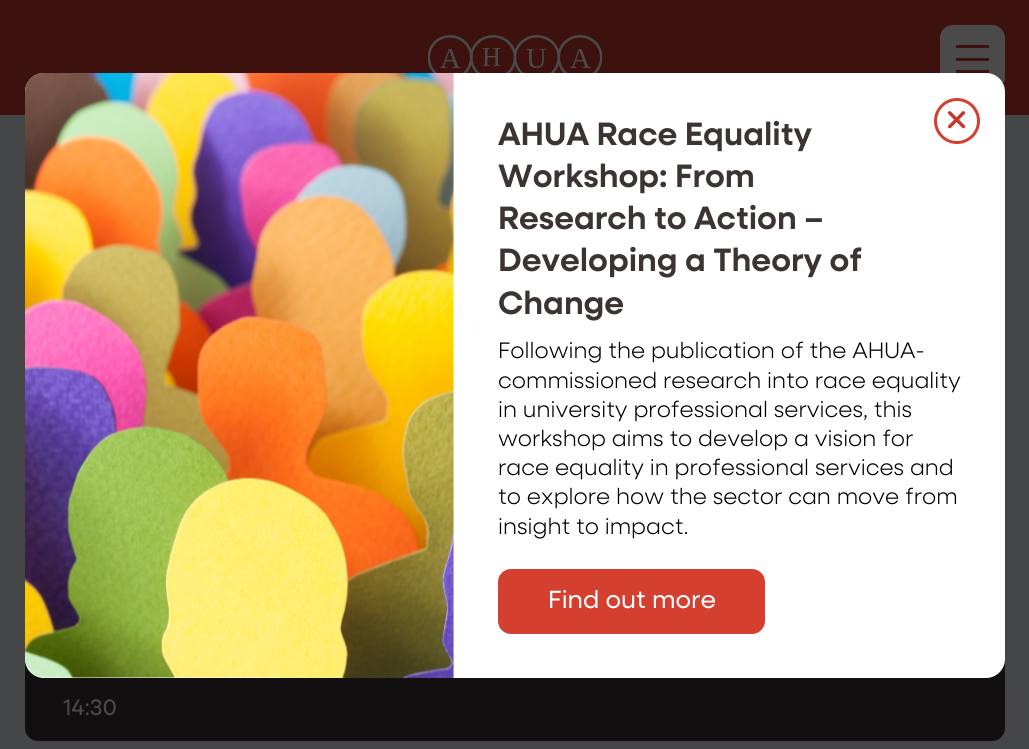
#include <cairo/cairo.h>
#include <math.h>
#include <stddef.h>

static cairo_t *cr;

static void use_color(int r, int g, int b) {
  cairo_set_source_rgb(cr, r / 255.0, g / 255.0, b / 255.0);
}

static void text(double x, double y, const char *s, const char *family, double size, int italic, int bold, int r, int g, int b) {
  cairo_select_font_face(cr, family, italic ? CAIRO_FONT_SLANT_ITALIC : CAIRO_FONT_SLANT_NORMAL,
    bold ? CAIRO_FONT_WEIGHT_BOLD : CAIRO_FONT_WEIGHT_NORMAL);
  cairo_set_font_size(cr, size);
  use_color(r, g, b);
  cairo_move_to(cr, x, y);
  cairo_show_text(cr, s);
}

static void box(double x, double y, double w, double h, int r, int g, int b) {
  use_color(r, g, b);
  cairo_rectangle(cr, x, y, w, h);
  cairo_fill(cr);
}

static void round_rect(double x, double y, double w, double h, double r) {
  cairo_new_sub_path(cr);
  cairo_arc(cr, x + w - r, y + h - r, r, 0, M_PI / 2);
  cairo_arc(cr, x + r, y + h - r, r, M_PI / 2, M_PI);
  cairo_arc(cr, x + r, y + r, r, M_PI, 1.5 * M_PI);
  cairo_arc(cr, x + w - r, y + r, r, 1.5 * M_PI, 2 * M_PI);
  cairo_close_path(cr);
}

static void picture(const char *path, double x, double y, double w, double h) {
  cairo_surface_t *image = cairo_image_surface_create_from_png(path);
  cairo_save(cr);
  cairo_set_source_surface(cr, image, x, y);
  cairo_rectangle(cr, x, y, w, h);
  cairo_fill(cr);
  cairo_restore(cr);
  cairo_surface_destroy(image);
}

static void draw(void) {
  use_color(69, 70, 71);
  cairo_paint(cr);
  box(0, 0, 1029, 115, 61, 18, 14);
  picture("img_01.png", 428, 35, 175, 38);
  use_color(74, 74, 74);
  round_rect(940, 25, 65, 65, 13);
  cairo_fill(cr);
  box(956, 45, 33, 3, 61, 18, 14);
  box(956, 58, 33, 3, 61, 18, 14);
  box(956, 70, 33, 3, 61, 18, 14);
  use_color(17, 15, 15);
  round_rect(25, 639, 980, 102, 13);
  cairo_fill(cr);
  use_color(255, 255, 255);
  round_rect(25, 73, 980, 605, 19);
  cairo_fill(cr);
  picture("img_02.png", 25, 73, 429, 605);
  cairo_arc(cr, 957, 121, 21.5, 0, 2 * M_PI);
  use_color(212, 63, 48);
  cairo_set_line_width(cr, 3);
  cairo_stroke(cr);
  picture("img_03.png", 948, 111, 18, 18);
  round_rect(498, 569, 267, 65, 13);
  cairo_fill(cr);
  text(498, 145, "AHUA Race Equality", "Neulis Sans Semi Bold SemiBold", 32.5, 0, 0, 60, 51, 51);
  text(498, 187, "Workshop: From", "Neulis Sans Semi Bold SemiBold", 32.5, 0, 0, 60, 51, 51);
  text(498, 229, "Research to Action –", "Neulis Sans Semi Bold SemiBold", 32.5, 0, 0, 60, 51, 51);
  text(498, 271, "Developing a Theory of", "Neulis Sans Semi Bold SemiBold", 32.5, 0, 0, 60, 51, 51);
  text(498, 314, "Change", "Neulis Sans Semi Bold SemiBold", 32.5, 0, 0, 60, 51, 51);
  text(498, 358, "Following the publication of the AHUA-", "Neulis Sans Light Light", 22.5, 0, 0, 0, 0, 0);
  text(498, 388, "commissioned research into race equality", "Neulis Sans Light Light", 22.5, 0, 0, 0, 0, 0);
  text(498, 417, "in university professional services, this", "Neulis Sans Light Light", 22.5, 0, 0, 0, 0, 0);
  text(498, 446, "workshop aims to develop a vision for", "Neulis Sans Light Light", 22.5, 0, 0, 0, 0, 0);
  text(498, 475, "race equality in professional services and", "Neulis Sans Light Light", 22.5, 0, 0, 0, 0, 0);
  text(498, 504, "to explore how the sector can move from", "Neulis Sans Light Light", 22.5, 0, 0, 0, 0, 0);
  text(498, 534, "insight to impact.", "Neulis Sans Light Light", 22.5, 0, 0, 0, 0, 0);
  text(548, 608, "Find out more", "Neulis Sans", 25, 0, 0, 255, 255, 255);
  text(63, 715, "14:30", "Neulis Sans", 22.5, 0, 0, 74, 74, 74);
}

int main(void) {
  cairo_surface_t *surface = cairo_image_surface_create(CAIRO_FORMAT_RGB24, 1029, 749);
  cr = cairo_create(surface);
  cairo_font_options_t *options = cairo_font_options_create();
  cairo_font_options_set_hint_metrics(options, CAIRO_HINT_METRICS_OFF);
  cairo_font_options_set_hint_style(options, CAIRO_HINT_STYLE_NONE);
  cairo_set_font_options(cr, options);
  cairo_set_miter_limit(cr, 4);
  draw();
  cairo_surface_write_to_png(surface, "out.png");
  cairo_font_options_destroy(options);
  cairo_destroy(cr);
  cairo_surface_destroy(surface);
  return 0;
}
